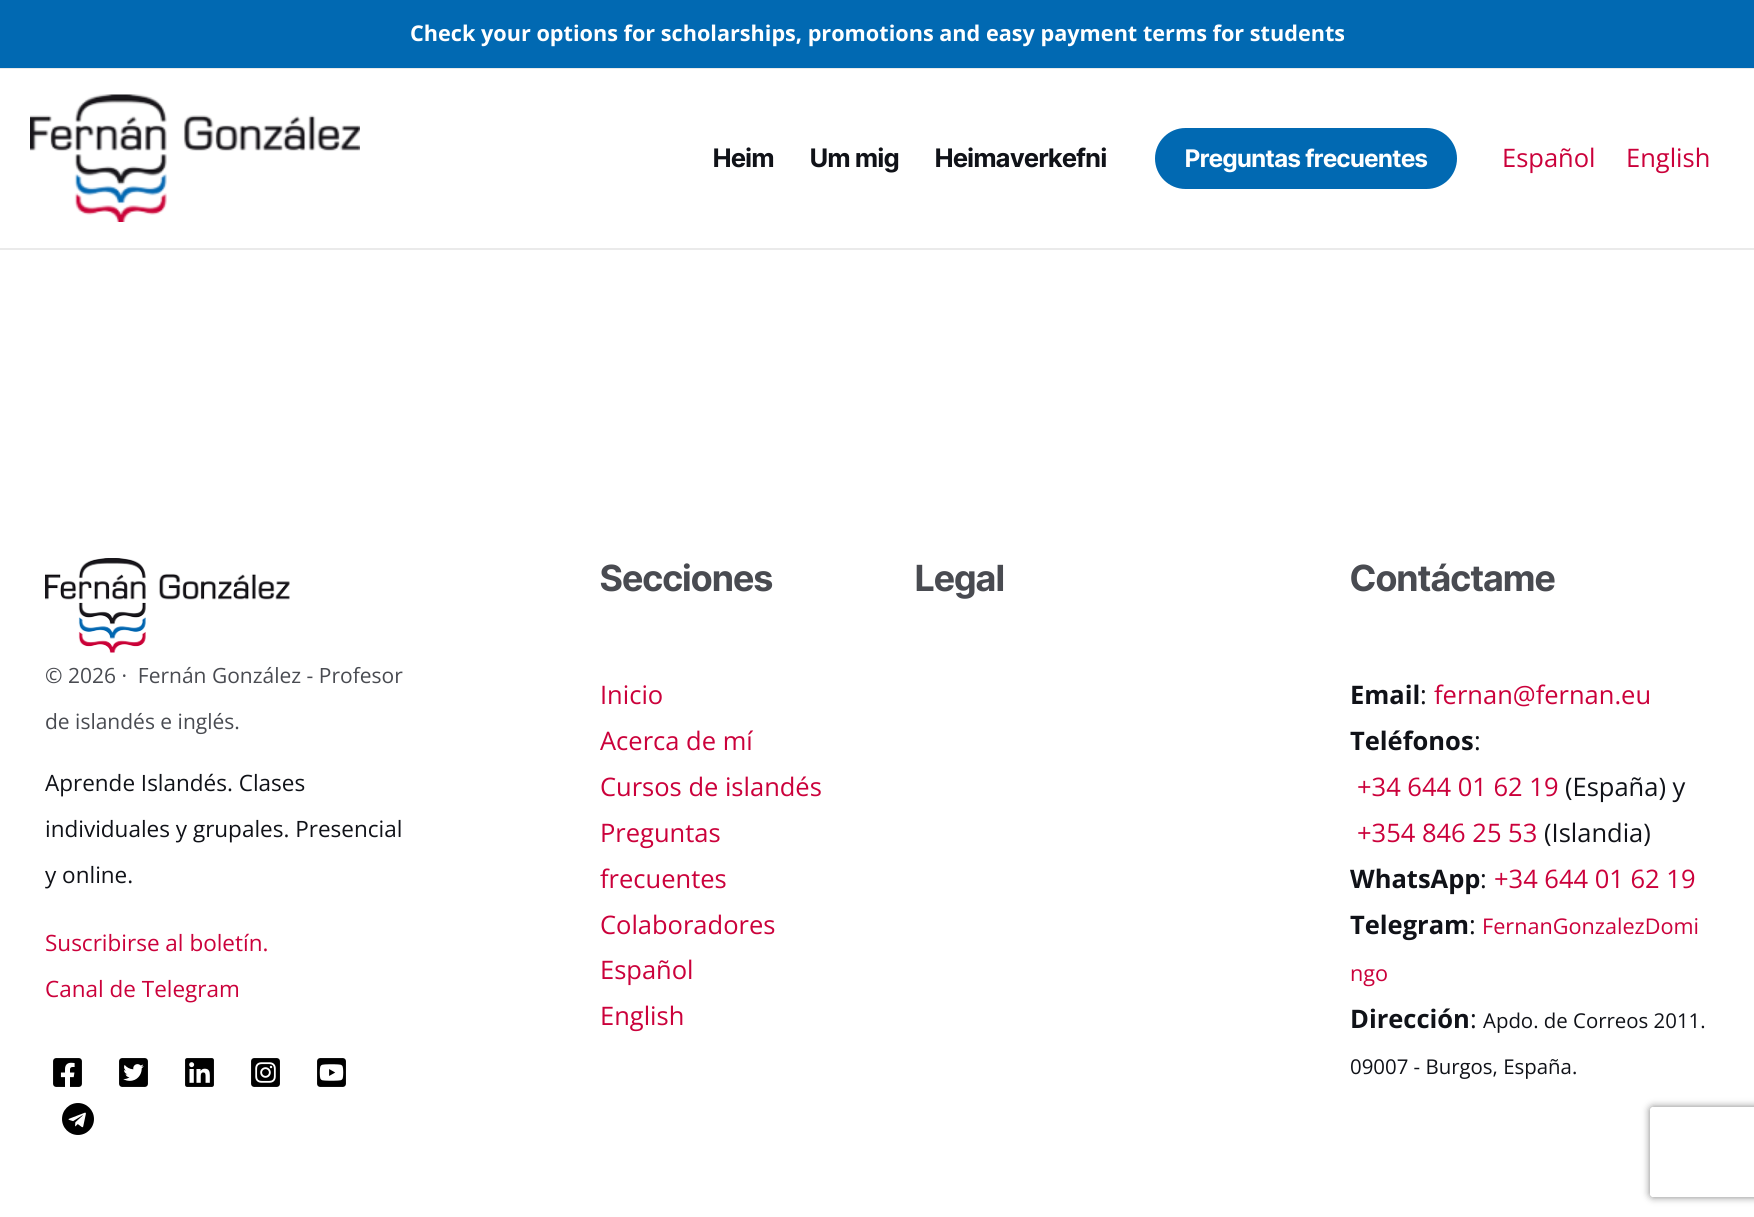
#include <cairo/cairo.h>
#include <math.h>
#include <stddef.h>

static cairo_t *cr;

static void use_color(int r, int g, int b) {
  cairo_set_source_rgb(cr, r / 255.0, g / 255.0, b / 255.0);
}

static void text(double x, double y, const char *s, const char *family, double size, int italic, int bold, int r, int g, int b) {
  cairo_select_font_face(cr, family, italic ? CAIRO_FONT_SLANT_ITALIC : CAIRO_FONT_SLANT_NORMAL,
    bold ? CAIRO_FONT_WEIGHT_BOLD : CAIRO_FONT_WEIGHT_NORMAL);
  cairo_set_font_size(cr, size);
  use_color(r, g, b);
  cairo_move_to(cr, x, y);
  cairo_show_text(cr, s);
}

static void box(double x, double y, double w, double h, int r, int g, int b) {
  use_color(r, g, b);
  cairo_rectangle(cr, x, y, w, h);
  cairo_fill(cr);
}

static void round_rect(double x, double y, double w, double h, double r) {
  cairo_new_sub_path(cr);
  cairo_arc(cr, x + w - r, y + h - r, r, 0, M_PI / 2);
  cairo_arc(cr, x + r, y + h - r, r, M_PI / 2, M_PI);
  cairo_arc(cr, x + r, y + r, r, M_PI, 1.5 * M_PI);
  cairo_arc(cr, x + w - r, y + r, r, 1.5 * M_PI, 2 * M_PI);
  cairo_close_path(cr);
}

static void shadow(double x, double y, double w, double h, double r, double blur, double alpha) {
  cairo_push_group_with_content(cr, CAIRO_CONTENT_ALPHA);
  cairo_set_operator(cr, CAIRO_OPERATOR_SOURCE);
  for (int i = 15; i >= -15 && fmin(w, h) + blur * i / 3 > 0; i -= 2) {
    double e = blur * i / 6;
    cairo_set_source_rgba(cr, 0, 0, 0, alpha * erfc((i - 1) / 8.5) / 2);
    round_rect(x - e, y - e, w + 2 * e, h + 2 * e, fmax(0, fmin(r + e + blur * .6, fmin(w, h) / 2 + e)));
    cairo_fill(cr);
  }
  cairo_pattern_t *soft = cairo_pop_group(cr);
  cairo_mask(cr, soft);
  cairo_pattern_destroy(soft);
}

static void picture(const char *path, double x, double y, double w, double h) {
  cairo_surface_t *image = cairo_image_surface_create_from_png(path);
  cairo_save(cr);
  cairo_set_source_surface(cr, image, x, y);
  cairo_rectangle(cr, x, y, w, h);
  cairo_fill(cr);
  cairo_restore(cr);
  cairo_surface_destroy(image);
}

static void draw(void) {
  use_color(255, 255, 255);
  cairo_paint(cr);
  box(0, 0, 1754, 68, 1, 105, 178);
  box(0, 68, 1754, 1, 234, 234, 234);
  box(0, 248, 1754, 2, 234, 234, 234);
  picture("img_01.png", 30, 94, 330, 128);
  use_color(1, 105, 178);
  round_rect(1155, 128, 302, 61, 30.5);
  cairo_fill(cr);
  picture("img_02.png", 45, 558, 245, 95);
  picture("img_03.png", 53, 1058, 29, 29);
  picture("img_04.png", 119, 1058, 29, 29);
  picture("img_05.png", 185, 1058, 29, 29);
  picture("img_06.png", 251, 1058, 29, 29);
  picture("img_07.png", 317, 1058, 29, 29);
  picture("img_08.png", 62, 1103, 32, 32);
  cairo_save(cr);
  cairo_set_fill_rule(cr, CAIRO_FILL_RULE_EVEN_ODD);
  cairo_new_path(cr);
  cairo_move_to(cr, 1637, 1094);
  cairo_line_to(cr, 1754, 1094);
  cairo_line_to(cr, 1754, 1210);
  cairo_line_to(cr, 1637, 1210);
  cairo_close_path(cr);
  cairo_move_to(cr, 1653, 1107);
  cairo_line_to(cr, 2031, 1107);
  cairo_curve_to(cr, 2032.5, 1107, 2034, 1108.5, 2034, 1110);
  cairo_line_to(cr, 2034, 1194);
  cairo_curve_to(cr, 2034, 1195.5, 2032.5, 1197, 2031, 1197);
  cairo_line_to(cr, 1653, 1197);
  cairo_curve_to(cr, 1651.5, 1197, 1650, 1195.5, 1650, 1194);
  cairo_line_to(cr, 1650, 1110);
  cairo_curve_to(cr, 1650, 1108.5, 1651.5, 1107, 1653, 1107);
  cairo_close_path(cr);
  cairo_clip(cr);
  use_color(128, 128, 128);
  shadow(1650, 1107, 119, 90, 3, 4, 1);
  cairo_restore(cr);
  text(410, 41, "Check your options for scholarships, promotions and easy payment terms for students", "Open Sans", 21.65, 0, 1, 255, 255, 255);
  text(713, 167, "Heim", "Inter Tight", 25.5, 0, 1, 16, 18, 24);
  text(810, 167, "Um mig", "Inter Tight", 25.5, 0, 1, 16, 18, 24);
  text(935, 167, "Heimaverkefni", "Inter Tight", 25.5, 0, 1, 16, 18, 24);
  text(1185, 167, "Preguntas frecuentes", "Inter Tight", 24.25, 0, 1, 255, 255, 255);
  text(1502, 167, "Español", "Open Sans", 25.5, 0, 0, 203, 1, 59);
  text(1626, 167, "English", "Open Sans", 25.5, 0, 0, 203, 1, 59);
  text(600, 591, "Secciones", "Inter Tight", 36, 0, 1, 73, 75, 81);
  text(600, 704, "Inicio", "Open Sans", 25.5, 0, 0, 203, 1, 59);
  text(600, 750, "Acerca de mí", "Open Sans", 25.5, 0, 0, 203, 1, 59);
  text(600, 796, "Cursos de islandés", "Open Sans", 25.5, 0, 0, 203, 1, 59);
  text(600, 842, "Preguntas", "Open Sans", 25.5, 0, 0, 203, 1, 59);
  text(600, 888, "frecuentes", "Open Sans", 25.5, 0, 0, 203, 1, 59);
  text(600, 934, "Colaboradores", "Open Sans", 25.5, 0, 0, 203, 1, 59);
  text(600, 979, "Español", "Open Sans", 25.5, 0, 0, 203, 1, 59);
  text(600, 1025, "English", "Open Sans", 25.5, 0, 0, 203, 1, 59);
  text(915, 591, "Legal", "Inter Tight", 36, 0, 1, 73, 75, 81);
  text(1350, 591, "Contáctame", "Inter Tight", 36, 0, 1, 73, 75, 81);
  text(1350, 704, "Email", "Open Sans", 25.5, 0, 1, 16, 18, 24);
  text(1420, 704, ":", "Open Sans", 25.5, 0, 0, 16, 18, 24);
  text(1434, 704, "fernan@fernan.eu", "Open Sans", 25.5, 0, 0, 203, 1, 59);
  text(1350, 750, "Teléfonos", "Open Sans", 25.5, 0, 1, 16, 18, 24);
  text(1474, 750, ":", "Open Sans", 25.5, 0, 0, 16, 18, 24);
  text(1357, 796, "+34 644 01 62 19", "Open Sans", 25.5, 0, 0, 203, 1, 59);
  text(1565, 796, "(España) y", "Open Sans", 25.5, 0, 0, 16, 18, 24);
  text(1357, 842, "+354 846 25 53", "Open Sans", 25.5, 0, 0, 203, 1, 59);
  text(1544, 842, "(Islandia)", "Open Sans", 25.5, 0, 0, 16, 18, 24);
  text(1350, 888, "WhatsApp", "Open Sans", 25.5, 0, 1, 16, 18, 24);
  text(1480, 888, ":", "Open Sans", 25.5, 0, 0, 16, 18, 24);
  text(1494, 888, "+34 644 01 62 19", "Open Sans", 25.5, 0, 0, 203, 1, 59);
  text(1350, 934, "Telegram", "Open Sans", 25.5, 0, 1, 16, 18, 24);
  text(1469, 934, ":", "Open Sans", 25.5, 0, 0, 16, 18, 24);
  text(1482, 934, "FernanGonzalezDomi", "Open Sans", 21.65, 0, 0, 203, 1, 59);
  text(1350, 981, "ngo", "Open Sans", 21.65, 0, 0, 203, 1, 59);
  text(1350, 1028, "Dirección", "Open Sans", 25.5, 0, 1, 16, 18, 24);
  text(1470, 1028, ":", "Open Sans", 25.5, 0, 0, 16, 18, 24);
  text(1483, 1028, "Apdo. de Correos 2011.", "Open Sans", 20.4, 0, 0, 16, 18, 24);
  text(1350, 1074, "09007 - Burgos, España.", "Open Sans", 20.4, 0, 0, 16, 18, 24);
  text(45, 683, "© 2026 ·  Fernán González - Profesor", "Open Sans", 21, 0, 0, 73, 75, 81);
  text(45, 729, "de islandés e inglés.", "Open Sans", 21, 0, 0, 73, 75, 81);
  text(45, 791, "Aprende Islandés. Clases", "Open Sans", 22.5, 0, 0, 16, 18, 24);
  text(45, 837, "individuales y grupales. Presencial", "Open Sans", 22.5, 0, 0, 16, 18, 24);
  text(45, 883, "y online.", "Open Sans", 22.5, 0, 0, 16, 18, 24);
  text(45, 951, "Suscribirse al boletín.", "Open Sans", 22.5, 0, 0, 203, 1, 59);
  text(45, 997, "Canal de Telegram", "Open Sans", 22.5, 0, 0, 203, 1, 59);
}

int main(void) {
  cairo_surface_t *surface = cairo_image_surface_create(CAIRO_FORMAT_RGB24, 1754, 1217);
  cr = cairo_create(surface);
  cairo_font_options_t *options = cairo_font_options_create();
  cairo_font_options_set_hint_metrics(options, CAIRO_HINT_METRICS_OFF);
  cairo_font_options_set_hint_style(options, CAIRO_HINT_STYLE_NONE);
  cairo_set_font_options(cr, options);
  cairo_set_miter_limit(cr, 4);
  draw();
  cairo_surface_write_to_png(surface, "out.png");
  cairo_font_options_destroy(options);
  cairo_destroy(cr);
  cairo_surface_destroy(surface);
  return 0;
}
